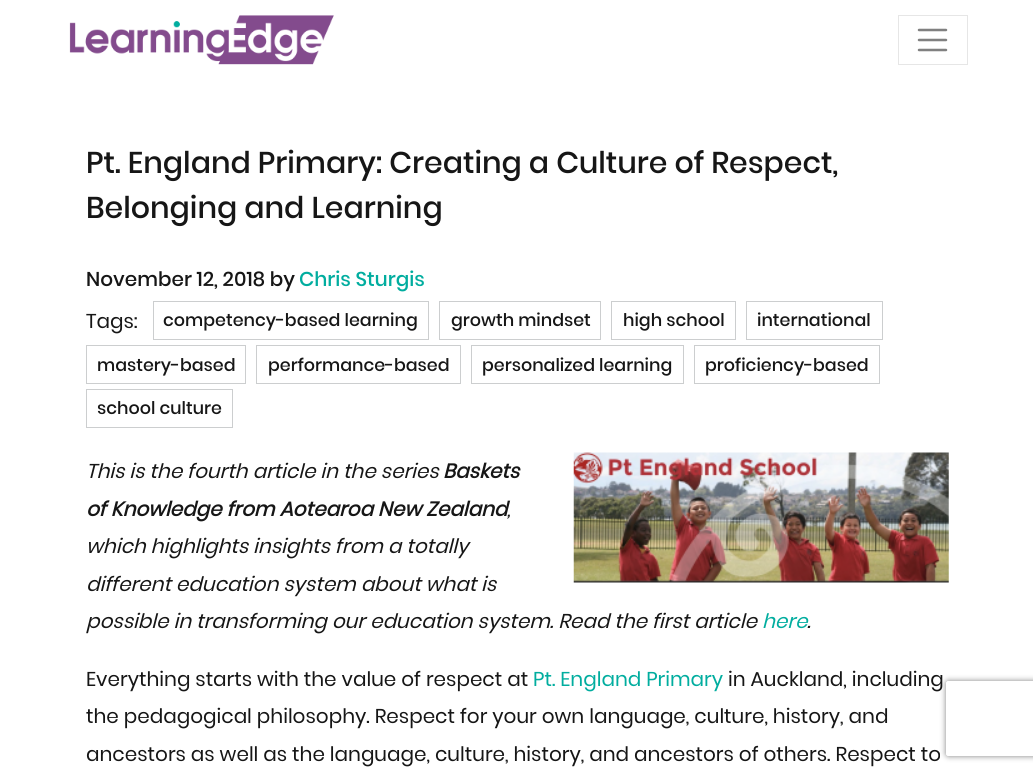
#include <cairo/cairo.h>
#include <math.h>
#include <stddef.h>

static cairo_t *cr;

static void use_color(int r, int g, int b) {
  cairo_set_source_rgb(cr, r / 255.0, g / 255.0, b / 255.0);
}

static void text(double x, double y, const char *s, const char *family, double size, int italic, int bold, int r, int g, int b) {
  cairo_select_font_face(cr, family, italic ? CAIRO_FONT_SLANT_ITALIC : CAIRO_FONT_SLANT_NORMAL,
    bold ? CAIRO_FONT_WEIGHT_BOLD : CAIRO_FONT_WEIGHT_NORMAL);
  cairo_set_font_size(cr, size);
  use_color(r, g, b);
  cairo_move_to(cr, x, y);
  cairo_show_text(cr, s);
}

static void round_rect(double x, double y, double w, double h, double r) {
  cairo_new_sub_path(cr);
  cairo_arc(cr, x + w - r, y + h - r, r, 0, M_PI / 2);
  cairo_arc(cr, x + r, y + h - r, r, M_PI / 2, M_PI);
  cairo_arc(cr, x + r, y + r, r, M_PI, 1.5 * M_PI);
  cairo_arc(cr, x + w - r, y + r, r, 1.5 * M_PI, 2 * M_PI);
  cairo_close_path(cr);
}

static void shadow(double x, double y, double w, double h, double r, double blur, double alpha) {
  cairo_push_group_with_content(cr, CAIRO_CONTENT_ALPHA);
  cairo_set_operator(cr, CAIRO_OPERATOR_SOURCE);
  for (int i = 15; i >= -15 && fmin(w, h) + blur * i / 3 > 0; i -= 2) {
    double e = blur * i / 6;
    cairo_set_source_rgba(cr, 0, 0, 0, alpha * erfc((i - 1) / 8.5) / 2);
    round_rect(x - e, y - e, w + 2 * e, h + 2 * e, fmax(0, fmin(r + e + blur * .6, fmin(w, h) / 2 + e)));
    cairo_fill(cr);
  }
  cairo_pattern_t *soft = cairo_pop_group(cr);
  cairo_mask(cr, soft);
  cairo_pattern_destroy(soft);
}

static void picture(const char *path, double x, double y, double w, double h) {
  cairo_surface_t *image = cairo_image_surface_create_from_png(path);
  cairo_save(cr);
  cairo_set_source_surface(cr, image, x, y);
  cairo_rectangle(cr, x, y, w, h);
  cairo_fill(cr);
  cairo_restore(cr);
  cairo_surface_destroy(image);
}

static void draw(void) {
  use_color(255, 255, 255);
  cairo_paint(cr);
  picture("img_01.png", 69, 15, 265, 50);
  cairo_rectangle(cr, 898.5, 15.5, 69, 49);
  use_color(230, 230, 230);
  cairo_set_line_width(cr, 1);
  cairo_stroke(cr);
  cairo_new_path(cr);
  cairo_move_to(cr, 919, 30);
  cairo_line_to(cr, 946, 30);
  cairo_move_to(cr, 919, 40);
  cairo_line_to(cr, 946, 40);
  cairo_move_to(cr, 919, 50);
  cairo_line_to(cr, 946, 50);
  use_color(128, 128, 128);
  cairo_set_line_width(cr, 2.5);
  cairo_set_line_cap(cr, CAIRO_LINE_CAP_ROUND);
  cairo_stroke(cr);
  cairo_rectangle(cr, 153.5, 301.5, 275, 38);
  use_color(204, 206, 207);
  cairo_set_line_width(cr, 1);
  cairo_set_line_cap(cr, CAIRO_LINE_CAP_BUTT);
  cairo_stroke(cr);
  cairo_rectangle(cr, 439.5, 301.5, 161, 38);
  cairo_stroke(cr);
  cairo_rectangle(cr, 611.5, 301.5, 124, 38);
  cairo_stroke(cr);
  cairo_rectangle(cr, 746.5, 301.5, 136, 38);
  cairo_stroke(cr);
  cairo_rectangle(cr, 86.5, 345.5, 159, 38);
  cairo_stroke(cr);
  cairo_rectangle(cr, 256.5, 345.5, 204, 38);
  cairo_stroke(cr);
  cairo_rectangle(cr, 471.5, 345.5, 212, 38);
  cairo_stroke(cr);
  cairo_rectangle(cr, 694.5, 345.5, 185, 38);
  cairo_stroke(cr);
  cairo_rectangle(cr, 86.5, 389.5, 146, 38);
  cairo_stroke(cr);
  picture("img_02.png", 573, 452, 376, 131);
  cairo_save(cr);
  cairo_set_fill_rule(cr, CAIRO_FILL_RULE_EVEN_ODD);
  cairo_new_path(cr);
  cairo_move_to(cr, 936, 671);
  cairo_line_to(cr, 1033, 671);
  cairo_line_to(cr, 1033, 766);
  cairo_line_to(cr, 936, 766);
  cairo_close_path(cr);
  cairo_move_to(cr, 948.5, 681);
  cairo_line_to(cr, 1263.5, 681);
  cairo_curve_to(cr, 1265, 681, 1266, 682, 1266, 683.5);
  cairo_line_to(cr, 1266, 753.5);
  cairo_curve_to(cr, 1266, 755, 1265, 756, 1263.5, 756);
  cairo_line_to(cr, 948.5, 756);
  cairo_curve_to(cr, 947, 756, 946, 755, 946, 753.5);
  cairo_line_to(cr, 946, 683.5);
  cairo_curve_to(cr, 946, 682, 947, 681, 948.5, 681);
  cairo_close_path(cr);
  cairo_clip(cr);
  use_color(128, 128, 128);
  shadow(946, 681, 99, 75, 2.5, 3, 1);
  cairo_restore(cr);
  text(86, 173, "Pt. England Primary: Creating a Culture of Respect,", "Poppins Medium", 30, 0, 0, 22, 22, 22);
  text(86, 218, "Belonging and Learning", "Poppins Medium", 30, 0, 0, 22, 22, 22);
  text(86, 286, "November 12, 2018 by", "Poppins Medium", 20, 0, 0, 22, 22, 22);
  text(299, 286, "Chris Sturgis", "Poppins Medium", 20, 0, 0, 1, 173, 159);
  text(86, 328, "Tags:", "Poppins", 20, 0, 0, 22, 22, 22);
  text(163, 326, "competency-based learning", "Poppins Medium", 17.5, 0, 0, 22, 22, 22);
  text(451, 326, "growth mindset", "Poppins Medium", 17.5, 0, 0, 22, 22, 22);
  text(623, 326, "high school", "Poppins Medium", 17.5, 0, 0, 22, 22, 22);
  text(757, 326, "international", "Poppins Medium", 17.5, 0, 0, 22, 22, 22);
  text(97, 371, "mastery-based", "Poppins Medium", 17.5, 0, 0, 22, 22, 22);
  text(268, 371, "performance-based", "Poppins Medium", 17.5, 0, 0, 22, 22, 22);
  text(482, 371, "personalized learning", "Poppins Medium", 17.5, 0, 0, 22, 22, 22);
  text(705, 371, "proficiency-based", "Poppins Medium", 17.5, 0, 0, 22, 22, 22);
  text(97, 414, "school culture", "Poppins Medium", 17.5, 0, 0, 22, 22, 22);
  text(86, 478, "This is the fourth article in the series", "Poppins", 20, 1, 0, 22, 22, 22);
  text(443, 478, "Baskets", "Poppins", 20, 1, 1, 22, 22, 22);
  text(86, 516, "of Knowledge from Aotearoa New Zealand", "Poppins", 20, 1, 1, 22, 22, 22);
  text(507, 516, ",", "Poppins", 20, 1, 0, 22, 22, 22);
  text(86, 553, "which highlights insights from a totally", "Poppins", 20, 1, 0, 22, 22, 22);
  text(86, 591, "different education system about what is", "Poppins", 20, 1, 0, 22, 22, 22);
  text(86, 628, "possible in transforming our education system. Read the first article", "Poppins", 20, 1, 0, 22, 22, 22);
  text(762, 628, "here", "Poppins", 20, 1, 0, 1, 173, 159);
  text(807, 628, ".", "Poppins", 20, 1, 0, 22, 22, 22);
  text(86, 686, "Everything starts with the value of respect at", "Poppins", 20, 0, 0, 22, 22, 22);
  text(533, 686, "Pt. England Primary", "Poppins", 20, 0, 0, 1, 173, 159);
  text(728, 686, "in Auckland, including", "Poppins", 20, 0, 0, 22, 22, 22);
  text(86, 723, "the pedagogical philosophy. Respect for your own language, culture, history, and", "Poppins", 20, 0, 0, 22, 22, 22);
  text(86, 761, "ancestors as well as the language, culture, history, and ancestors of others. Respect to", "Poppins", 20, 0, 0, 22, 22, 22);
}

int main(void) {
  cairo_surface_t *surface = cairo_image_surface_create(CAIRO_FORMAT_RGB24, 1033, 773);
  cr = cairo_create(surface);
  cairo_font_options_t *options = cairo_font_options_create();
  cairo_font_options_set_hint_metrics(options, CAIRO_HINT_METRICS_OFF);
  cairo_font_options_set_hint_style(options, CAIRO_HINT_STYLE_NONE);
  cairo_set_font_options(cr, options);
  cairo_set_miter_limit(cr, 4);
  draw();
  cairo_surface_write_to_png(surface, "out.png");
  cairo_font_options_destroy(options);
  cairo_destroy(cr);
  cairo_surface_destroy(surface);
  return 0;
}
